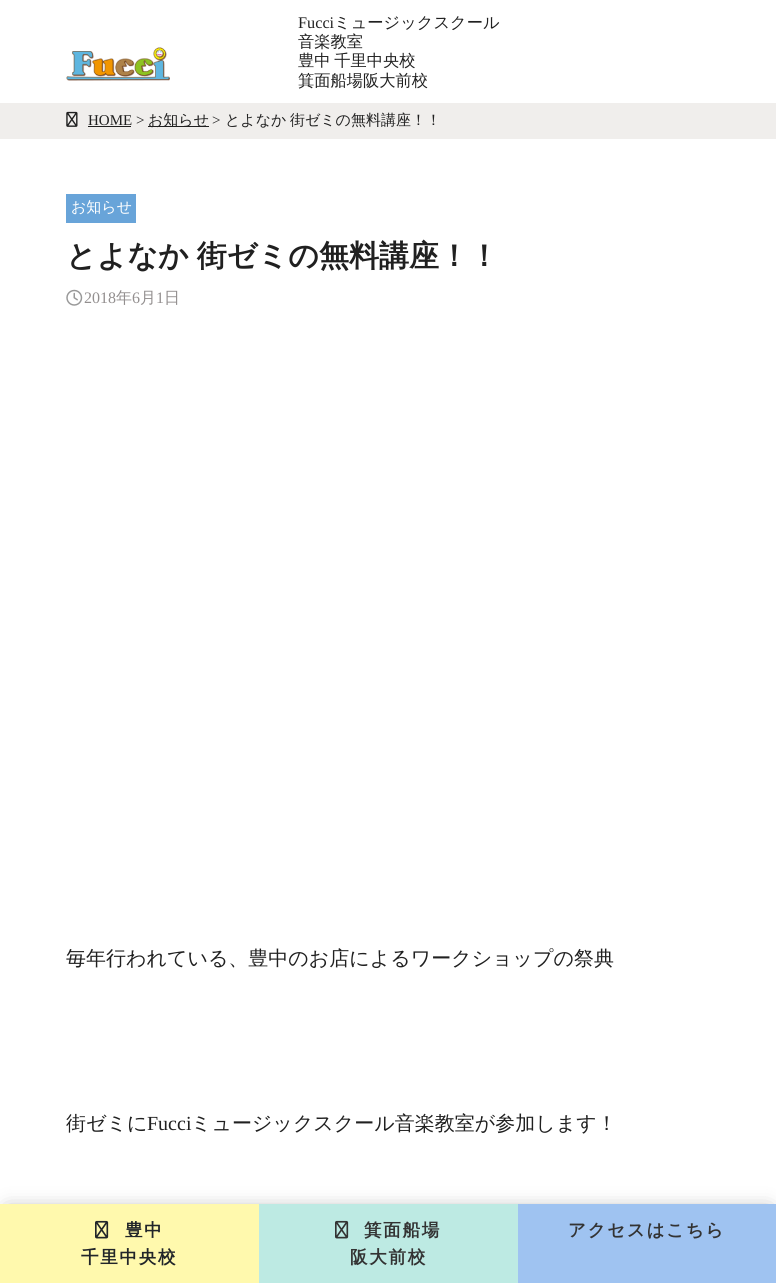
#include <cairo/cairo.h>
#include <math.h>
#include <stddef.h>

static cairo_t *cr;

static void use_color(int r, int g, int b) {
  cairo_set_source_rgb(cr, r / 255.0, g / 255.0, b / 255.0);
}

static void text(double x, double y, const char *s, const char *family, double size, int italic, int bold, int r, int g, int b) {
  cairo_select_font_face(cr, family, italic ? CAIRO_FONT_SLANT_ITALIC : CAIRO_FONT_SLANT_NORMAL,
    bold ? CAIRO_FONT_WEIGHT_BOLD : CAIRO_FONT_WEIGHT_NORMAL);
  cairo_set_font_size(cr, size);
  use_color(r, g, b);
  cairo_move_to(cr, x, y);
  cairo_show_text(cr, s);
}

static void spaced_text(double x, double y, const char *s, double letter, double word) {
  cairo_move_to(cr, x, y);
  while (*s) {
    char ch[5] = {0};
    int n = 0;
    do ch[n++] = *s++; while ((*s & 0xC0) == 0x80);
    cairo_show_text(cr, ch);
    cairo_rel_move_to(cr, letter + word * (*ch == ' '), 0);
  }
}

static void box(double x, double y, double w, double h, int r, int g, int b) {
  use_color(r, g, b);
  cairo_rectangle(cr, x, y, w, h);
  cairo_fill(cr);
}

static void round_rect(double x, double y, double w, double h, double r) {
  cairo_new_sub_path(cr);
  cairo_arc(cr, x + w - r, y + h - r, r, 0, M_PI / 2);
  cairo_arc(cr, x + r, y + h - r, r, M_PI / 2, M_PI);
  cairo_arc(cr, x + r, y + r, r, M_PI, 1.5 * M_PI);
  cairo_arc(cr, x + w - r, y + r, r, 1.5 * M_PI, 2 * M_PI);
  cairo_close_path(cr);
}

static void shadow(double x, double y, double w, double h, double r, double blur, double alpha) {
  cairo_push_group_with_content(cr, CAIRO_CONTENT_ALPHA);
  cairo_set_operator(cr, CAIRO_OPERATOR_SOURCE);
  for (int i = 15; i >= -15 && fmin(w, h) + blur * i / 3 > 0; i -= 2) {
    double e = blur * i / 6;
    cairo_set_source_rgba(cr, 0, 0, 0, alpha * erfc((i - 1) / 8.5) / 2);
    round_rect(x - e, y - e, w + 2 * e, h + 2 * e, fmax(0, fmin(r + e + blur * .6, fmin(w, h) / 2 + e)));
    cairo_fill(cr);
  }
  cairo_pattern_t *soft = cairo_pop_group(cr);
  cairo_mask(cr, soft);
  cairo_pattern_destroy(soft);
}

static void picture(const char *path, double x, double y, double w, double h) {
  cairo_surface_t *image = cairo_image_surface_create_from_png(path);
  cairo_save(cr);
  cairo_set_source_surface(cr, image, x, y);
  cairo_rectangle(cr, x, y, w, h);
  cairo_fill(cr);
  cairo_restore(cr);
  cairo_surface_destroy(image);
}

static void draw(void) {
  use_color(255, 255, 255);
  cairo_paint(cr);
  picture("img_01.png", 66, 47, 104, 34);
  box(0, 103, 776, 36, 240, 238, 236);
  picture("img_02.png", 66, 111, 12, 16);
  box(88, 126, 43, 1, 32, 32, 32);
  box(148, 126, 61, 1, 32, 32, 32);
  box(66, 194, 70, 29, 104, 164, 217);
  picture("img_03.png", 66, 289, 17, 17);
  use_color(0, 0, 0);
  shadow(8, 1211, 761, 65, 0, 10, 0.4);
  box(0, 1204, 259, 79, 255, 249, 173);
  picture("img_04.png", 95, 1220, 14, 19);
  box(259, 1204, 259, 79, 189, 234, 227);
  picture("img_05.png", 335, 1220, 14, 19);
  box(518, 1204, 258, 79, 159, 195, 241);
  text(298, 28, "Fucci", "Liberation Serif", 16.25, 0, 0, 32, 32, 32);
  text(334, 28, "ミュージックスクール", "WenQuanYi Zen Hei Medium", 16.25, 0, 0, 32, 32, 32);
  text(298, 47, "音楽教室", "WenQuanYi Zen Hei Medium", 16.25, 0, 0, 32, 32, 32);
  spaced_text(298, 66, "豊中 千里中央校", 0, -1);
  text(298, 86, "箕面船場阪大前校", "WenQuanYi Zen Hei Medium", 16.25, 0, 0, 32, 32, 32);
  text(88, 125, "HOME >", "Liberation Serif", 15, 0, 0, 32, 32, 32);
  text(148, 125, "お知らせ", "WenQuanYi Zen Hei Medium", 15, 0, 0, 32, 32, 32);
  text(212, 125, ">", "Liberation Serif", 15, 0, 0, 32, 32, 32);
  cairo_select_font_face(cr, "WenQuanYi Zen Hei Medium", CAIRO_FONT_SLANT_NORMAL, CAIRO_FONT_WEIGHT_NORMAL);
  spaced_text(225, 125, "とよなか 街ゼミの無料講座！！", 0, -1);
  text(71, 212, "お知らせ", "WenQuanYi Zen Hei Medium", 15, 0, 0, 255, 255, 255);
  cairo_select_font_face(cr, "WenQuanYi Zen Hei", CAIRO_FONT_SLANT_NORMAL, CAIRO_FONT_WEIGHT_BOLD);
  cairo_set_font_size(cr, 30);
  use_color(32, 32, 32);
  spaced_text(66, 266, "とよなか 街ゼミの無料講座！！", 0, -1);
  text(84, 303, "2018", "Liberation Serif", 16, 0, 0, 147, 143, 143);
  text(116, 303, "年", "WenQuanYi Zen Hei Medium", 16, 0, 0, 147, 143, 143);
  text(132, 303, "6", "Liberation Serif", 16, 0, 0, 147, 143, 143);
  text(140, 303, "月", "WenQuanYi Zen Hei Medium", 16, 0, 0, 147, 143, 143);
  text(156, 303, "1", "Liberation Serif", 16, 0, 0, 147, 143, 143);
  text(164, 303, "日", "WenQuanYi Zen Hei Medium", 16, 0, 0, 147, 143, 143);
  text(66, 965, "毎年行われている、豊中のお店によるワークショップの祭典", "WenQuanYi Zen Hei Medium", 20, 0, 0, 32, 32, 32);
  text(66, 1130, "街ゼミに", "WenQuanYi Zen Hei Medium", 20, 0, 0, 32, 32, 32);
  text(147, 1130, "Fucci", "Liberation Serif", 20, 0, 0, 32, 32, 32);
  text(191, 1130, "ミュージックスクール音楽教室が参加します！", "WenQuanYi Zen Hei Medium", 20, 0, 0, 32, 32, 32);
  cairo_select_font_face(cr, "WenQuanYi Zen Hei", CAIRO_FONT_SLANT_NORMAL, CAIRO_FONT_WEIGHT_BOLD);
  cairo_set_font_size(cr, 17.5);
  use_color(33, 37, 41);
  spaced_text(125, 1236, "豊中", 1.75, 0);
  spaced_text(81, 1263, "千里中央校", 1.75, 0);
  use_color(51, 51, 51);
  spaced_text(364, 1236, "箕面船場", 1.75, 0);
  spaced_text(350, 1263, "阪大前校", 1.75, 0);
  spaced_text(568, 1236, "アクセスはこちら", 1.75, 0);
}

int main(void) {
  cairo_surface_t *surface = cairo_image_surface_create(CAIRO_FORMAT_RGB24, 776, 1283);
  cr = cairo_create(surface);
  cairo_font_options_t *options = cairo_font_options_create();
  cairo_font_options_set_hint_metrics(options, CAIRO_HINT_METRICS_OFF);
  cairo_font_options_set_hint_style(options, CAIRO_HINT_STYLE_NONE);
  cairo_set_font_options(cr, options);
  cairo_set_miter_limit(cr, 4);
  draw();
  cairo_surface_write_to_png(surface, "out.png");
  cairo_font_options_destroy(options);
  cairo_destroy(cr);
  cairo_surface_destroy(surface);
  return 0;
}
